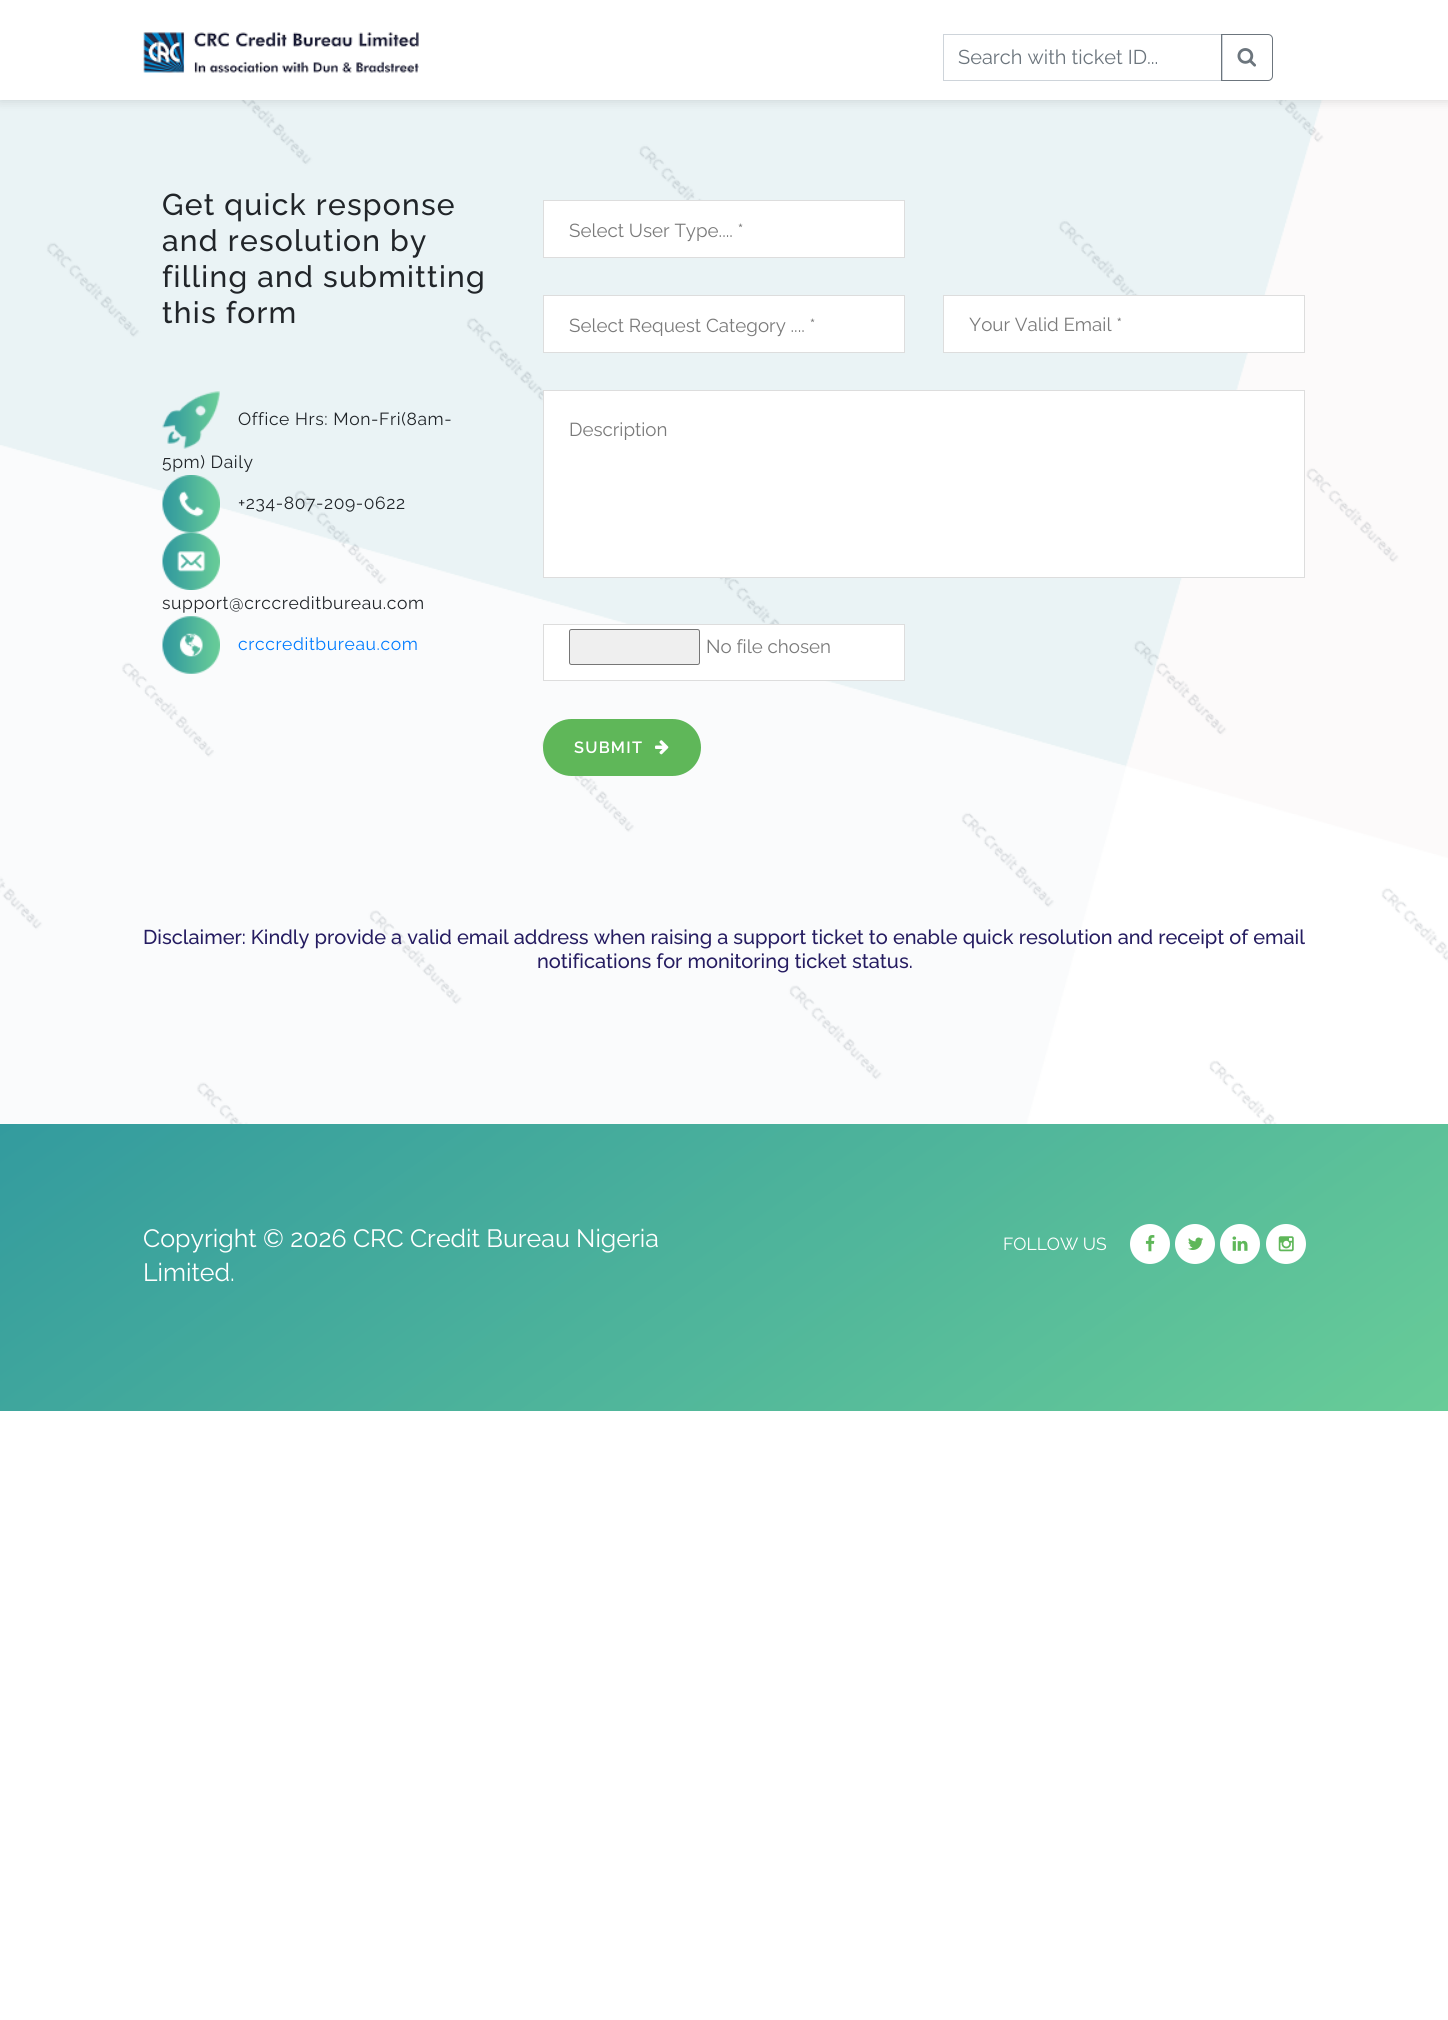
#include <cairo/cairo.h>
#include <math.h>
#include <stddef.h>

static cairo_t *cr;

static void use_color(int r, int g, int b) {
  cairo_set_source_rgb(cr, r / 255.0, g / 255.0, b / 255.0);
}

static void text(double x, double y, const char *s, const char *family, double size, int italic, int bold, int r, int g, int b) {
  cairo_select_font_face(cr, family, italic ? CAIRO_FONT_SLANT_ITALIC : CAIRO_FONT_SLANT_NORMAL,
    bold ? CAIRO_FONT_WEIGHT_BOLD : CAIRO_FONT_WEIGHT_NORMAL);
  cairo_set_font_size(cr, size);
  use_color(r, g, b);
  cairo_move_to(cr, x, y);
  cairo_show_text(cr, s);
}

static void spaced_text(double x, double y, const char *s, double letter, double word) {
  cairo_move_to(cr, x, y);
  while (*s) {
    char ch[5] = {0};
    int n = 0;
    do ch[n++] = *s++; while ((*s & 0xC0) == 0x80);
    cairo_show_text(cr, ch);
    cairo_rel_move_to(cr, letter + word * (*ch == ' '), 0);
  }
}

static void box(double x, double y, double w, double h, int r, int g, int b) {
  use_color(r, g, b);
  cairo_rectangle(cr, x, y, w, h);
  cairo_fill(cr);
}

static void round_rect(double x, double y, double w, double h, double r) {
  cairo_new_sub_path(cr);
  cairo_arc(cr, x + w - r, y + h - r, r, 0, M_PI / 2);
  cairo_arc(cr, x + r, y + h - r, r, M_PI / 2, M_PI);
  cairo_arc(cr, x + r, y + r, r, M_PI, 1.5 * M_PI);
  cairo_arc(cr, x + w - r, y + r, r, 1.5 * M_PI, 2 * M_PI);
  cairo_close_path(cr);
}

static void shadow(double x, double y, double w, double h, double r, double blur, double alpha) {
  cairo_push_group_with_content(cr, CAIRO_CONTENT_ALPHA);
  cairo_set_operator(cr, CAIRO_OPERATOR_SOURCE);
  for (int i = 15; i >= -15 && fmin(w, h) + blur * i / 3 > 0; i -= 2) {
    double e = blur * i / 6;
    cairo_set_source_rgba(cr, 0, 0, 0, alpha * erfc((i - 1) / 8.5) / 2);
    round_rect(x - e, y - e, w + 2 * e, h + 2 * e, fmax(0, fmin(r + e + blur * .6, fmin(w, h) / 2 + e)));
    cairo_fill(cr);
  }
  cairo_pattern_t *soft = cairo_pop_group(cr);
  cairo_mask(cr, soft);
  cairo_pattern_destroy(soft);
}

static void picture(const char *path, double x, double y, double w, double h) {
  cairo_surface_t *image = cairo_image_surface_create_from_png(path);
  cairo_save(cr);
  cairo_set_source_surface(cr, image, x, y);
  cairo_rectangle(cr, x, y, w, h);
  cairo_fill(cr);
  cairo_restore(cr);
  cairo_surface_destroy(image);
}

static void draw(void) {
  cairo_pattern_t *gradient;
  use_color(255, 255, 255);
  cairo_paint(cr);
  picture("img_03.png", 0, 100, 1448, 1024);
  use_color(0, 0, 0);
  shadow(0, 0, 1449, 100, 0, 6, 0.15);
  box(0, 0, 1448, 100, 255, 255, 255);
  picture("img_01.png", 143, 32, 276, 41);
  cairo_rectangle(cr, 943.5, 34.5, 279, 46);
  use_color(206, 212, 218);
  cairo_set_line_width(cr, 1);
  cairo_stroke(cr);
  cairo_new_path(cr);
  cairo_move_to(cr, 1221.5, 34.5);
  cairo_line_to(cr, 1268, 34.5);
  cairo_curve_to(cr, 1270.5, 34.5, 1272.5, 36.5, 1272.5, 39);
  cairo_line_to(cr, 1272.5, 76);
  cairo_curve_to(cr, 1272.5, 78.5, 1270.5, 80.5, 1268, 80.5);
  cairo_line_to(cr, 1221.5, 80.5);
  cairo_close_path(cr);
  use_color(108, 117, 125);
  cairo_stroke(cr);
  picture("img_02.png", 1237, 48, 19, 19);
  picture("img_04.png", 162, 391, 58, 58);
  picture("img_05.png", 162, 475, 58, 58);
  picture("img_06.png", 162, 532, 58, 58);
  picture("img_07.png", 162, 616, 58, 58);
  use_color(255, 255, 255);
  cairo_rectangle(cr, 543.5, 200.5, 361, 57);
  cairo_fill_preserve(cr);
  use_color(221, 221, 221);
  cairo_stroke(cr);
  use_color(255, 255, 255);
  cairo_rectangle(cr, 543.5, 295.5, 361, 57);
  cairo_fill_preserve(cr);
  use_color(221, 221, 221);
  cairo_stroke(cr);
  use_color(255, 255, 255);
  cairo_rectangle(cr, 943.5, 295.5, 361, 57);
  cairo_fill_preserve(cr);
  use_color(221, 221, 221);
  cairo_stroke(cr);
  use_color(255, 255, 255);
  cairo_rectangle(cr, 543.5, 390.5, 761, 187);
  cairo_fill_preserve(cr);
  use_color(221, 221, 221);
  cairo_stroke(cr);
  use_color(255, 255, 255);
  cairo_rectangle(cr, 543.5, 624.5, 361, 56);
  cairo_fill_preserve(cr);
  use_color(221, 221, 221);
  cairo_stroke(cr);
  use_color(239, 239, 239);
  round_rect(569.5, 629.5, 130, 35, 2);
  cairo_fill_preserve(cr);
  use_color(118, 118, 118);
  cairo_stroke(cr);
  use_color(95, 183, 89);
  round_rect(543, 719, 158, 57, 28.5);
  cairo_fill(cr);
  picture("img_08.png", 655, 740, 14, 15);
  gradient = cairo_pattern_create_linear(419, 831, 1030, 1704);
  cairo_pattern_add_color_stop_rgba(gradient, 0, 0.2, 0.608, 0.62, 1);
  cairo_pattern_add_color_stop_rgba(gradient, 1, 0.408, 0.8, 0.596, 1);
  cairo_set_source(cr, gradient);
  cairo_pattern_destroy(gradient);
  cairo_rectangle(cr, 0, 1124, 1448, 287);
  cairo_fill(cr);
  use_color(255, 255, 255);
  cairo_arc(cr, 1150, 1244, 20, 0, 2 * M_PI);
  cairo_fill(cr);
  picture("img_09.png", 1145, 1235, 10, 17);
  cairo_arc(cr, 1195, 1244, 20, 0, 2 * M_PI);
  cairo_fill(cr);
  picture("img_10.png", 1188, 1237, 16, 13);
  cairo_arc(cr, 1240, 1244, 20, 0, 2 * M_PI);
  cairo_fill(cr);
  picture("img_11.png", 1232, 1236, 16, 15);
  cairo_arc(cr, 1286, 1244, 20, 0, 2 * M_PI);
  cairo_fill(cr);
  picture("img_12.png", 1278, 1236, 16, 16);
  text(958, 64, "Search with ticket ID...", "Raleway", 20, 0, 0, 108, 117, 125);
  cairo_select_font_face(cr, "Raleway Medium", CAIRO_FONT_SLANT_NORMAL, CAIRO_FONT_WEIGHT_NORMAL);
  cairo_set_font_size(cr, 30);
  use_color(33, 37, 41);
  spaced_text(162, 215, "Get quick response", 1.25, 0);
  spaced_text(162, 251, "and resolution by", 1.25, 0);
  spaced_text(162, 287, "filling and submitting", 1.25, 0);
  spaced_text(162, 323, "this form", 1.25, 0);
  cairo_select_font_face(cr, "Raleway", CAIRO_FONT_SLANT_NORMAL, CAIRO_FONT_WEIGHT_NORMAL);
  cairo_set_font_size(cr, 17.5);
  spaced_text(238, 425, "Office Hrs: Mon-Fri(8am-", 0.6, 0);
  spaced_text(162, 468, "5pm) Daily", 0.6, 0);
  spaced_text(238, 509, "+234-807-209-0622", 0.6, 0);
  spaced_text(162, 609, "support@crccreditbureau.com", 0.6, 0);
  use_color(0, 123, 255);
  spaced_text(238, 650, "crccreditbureau.com", 0.6, 0);
  text(569, 237, "Select User Type.... *", "Raleway", 18.75, 0, 0, 122, 122, 122);
  text(569, 332, "Select Request Category .... *", "Raleway", 18.75, 0, 0, 122, 122, 122);
  text(969, 331, "Your Valid Email *", "Raleway", 18.75, 0, 0, 122, 122, 122);
  text(569, 436, "Description", "Raleway", 18.75, 0, 0, 122, 122, 122);
  text(706, 653, "No file chosen", "Raleway", 18.75, 0, 0, 122, 122, 122);
  cairo_select_font_face(cr, "Raleway SemiBold", CAIRO_FONT_SLANT_NORMAL, CAIRO_FONT_WEIGHT_NORMAL);
  cairo_set_font_size(cr, 16.25);
  use_color(255, 255, 255);
  spaced_text(574, 753, "SUBMIT", 1.25, 0);
  text(143, 944, "Disclaimer: Kindly provide a valid email address when raising a support ticket to enable quick resolution and receipt of email", "Raleway Medium", 20, 0, 0, 37, 28, 97);
  text(537, 968, "notifications for monitoring ticket status.", "Raleway Medium", 20, 0, 0, 37, 28, 97);
  text(143, 1247, "Copyright © 2026 CRC Credit Bureau Nigeria", "Raleway", 25, 0, 0, 255, 255, 255);
  text(143, 1281, "Limited.", "Raleway", 25, 0, 0, 255, 255, 255);
  text(1003, 1250, "FOLLOW US", "Raleway", 17.5, 0, 0, 255, 255, 255);
}

int main(void) {
  cairo_surface_t *surface = cairo_image_surface_create(CAIRO_FORMAT_RGB24, 1448, 2020);
  cr = cairo_create(surface);
  cairo_font_options_t *options = cairo_font_options_create();
  cairo_font_options_set_hint_metrics(options, CAIRO_HINT_METRICS_OFF);
  cairo_font_options_set_hint_style(options, CAIRO_HINT_STYLE_NONE);
  cairo_set_font_options(cr, options);
  cairo_set_miter_limit(cr, 4);
  draw();
  cairo_surface_write_to_png(surface, "out.png");
  cairo_font_options_destroy(options);
  cairo_destroy(cr);
  cairo_surface_destroy(surface);
  return 0;
}
